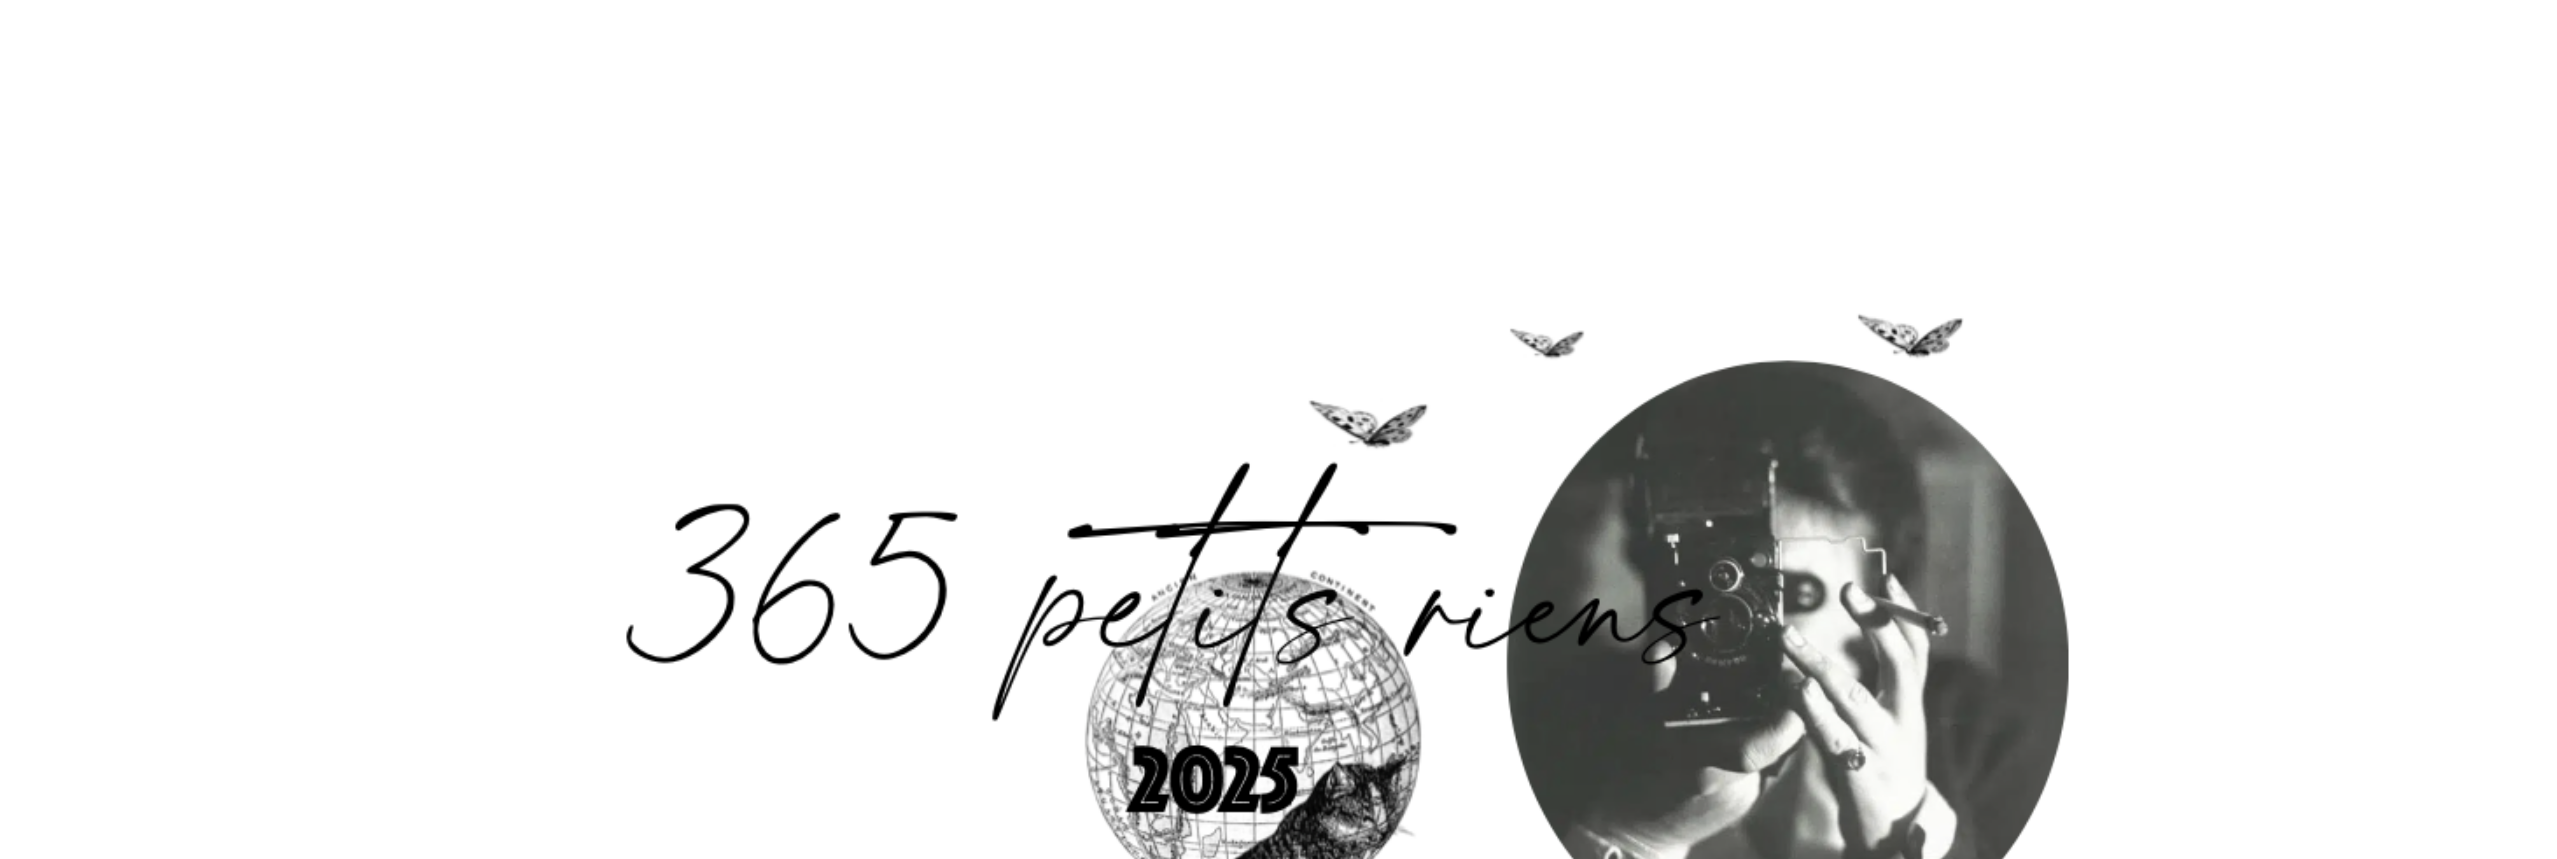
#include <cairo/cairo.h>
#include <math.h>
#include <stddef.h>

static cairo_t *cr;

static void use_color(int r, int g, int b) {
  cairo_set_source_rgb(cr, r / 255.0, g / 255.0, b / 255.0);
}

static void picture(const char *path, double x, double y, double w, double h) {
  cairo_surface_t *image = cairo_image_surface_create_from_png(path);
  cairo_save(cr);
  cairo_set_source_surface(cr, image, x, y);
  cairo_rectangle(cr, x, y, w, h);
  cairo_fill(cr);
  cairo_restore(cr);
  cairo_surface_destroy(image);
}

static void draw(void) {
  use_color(255, 255, 255);
  cairo_paint(cr);
  picture("img_01.png", 626, 313, 1443, 546);
}

int main(void) {
  cairo_surface_t *surface = cairo_image_surface_create(CAIRO_FORMAT_RGB24, 2557, 859);
  cr = cairo_create(surface);
  cairo_font_options_t *options = cairo_font_options_create();
  cairo_font_options_set_hint_metrics(options, CAIRO_HINT_METRICS_OFF);
  cairo_font_options_set_hint_style(options, CAIRO_HINT_STYLE_NONE);
  cairo_set_font_options(cr, options);
  cairo_set_miter_limit(cr, 4);
  draw();
  cairo_surface_write_to_png(surface, "out.png");
  cairo_font_options_destroy(options);
  cairo_destroy(cr);
  cairo_surface_destroy(surface);
  return 0;
}
